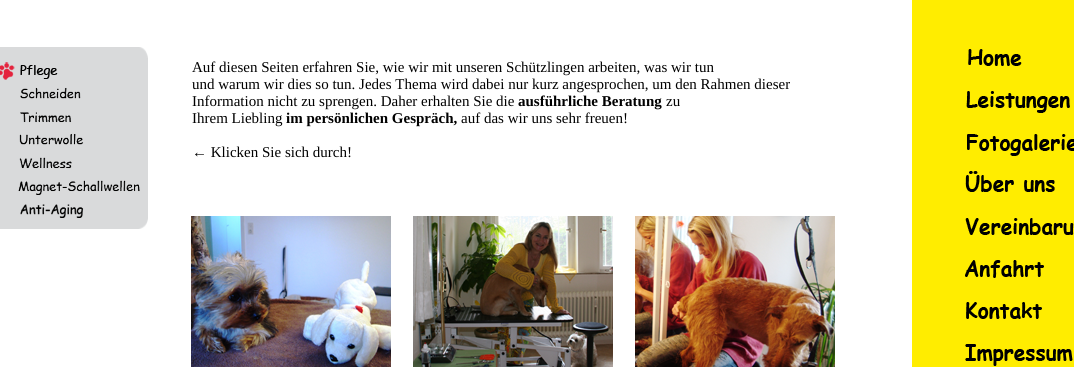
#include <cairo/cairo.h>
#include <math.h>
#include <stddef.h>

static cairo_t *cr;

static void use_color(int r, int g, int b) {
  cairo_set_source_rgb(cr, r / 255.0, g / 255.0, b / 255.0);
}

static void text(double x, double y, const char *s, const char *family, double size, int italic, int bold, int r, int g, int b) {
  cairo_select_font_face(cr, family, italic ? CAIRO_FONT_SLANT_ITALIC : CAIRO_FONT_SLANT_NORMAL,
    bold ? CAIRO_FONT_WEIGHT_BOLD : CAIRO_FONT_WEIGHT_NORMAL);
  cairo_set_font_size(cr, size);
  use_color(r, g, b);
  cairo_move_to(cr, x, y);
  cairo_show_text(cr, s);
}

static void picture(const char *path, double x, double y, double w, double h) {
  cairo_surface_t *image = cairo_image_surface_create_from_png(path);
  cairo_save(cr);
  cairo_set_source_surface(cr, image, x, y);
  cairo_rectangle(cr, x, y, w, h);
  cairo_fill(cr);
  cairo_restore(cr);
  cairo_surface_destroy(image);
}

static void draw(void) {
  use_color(255, 255, 255);
  cairo_paint(cr);
  picture("img_01.png", 0, 0, 1074, 367);
  picture("img_02.png", 0, 47, 148, 182);
  picture("img_03.png", 968, 49, 54, 17);
  picture("img_04.png", 966, 91, 104, 22);
  picture("img_05.png", 967, 134, 107, 22);
  picture("img_06.png", 965, 171, 90, 21);
  picture("img_07.png", 965, 218, 109, 17);
  picture("img_08.png", 965, 260, 79, 18);
  picture("img_09.png", 966, 302, 76, 17);
  picture("img_10.png", 965, 344, 108, 22);
  picture("img_11.png", 0, 62, 58, 18);
  picture("img_12.png", 20, 87, 61, 12);
  picture("img_13.png", 20, 112, 52, 11);
  picture("img_14.png", 19, 133, 65, 12);
  picture("img_15.png", 19, 157, 53, 12);
  picture("img_16.png", 18, 180, 122, 15);
  picture("img_17.png", 20, 204, 64, 14);
  picture("img_18.png", 191, 216, 200, 151);
  picture("img_19.png", 413, 216, 200, 151);
  picture("img_20.png", 635, 216, 200, 151);
  text(192, 72, "Auf diesen Seiten erfahren Sie, wie wir mit unseren Schützlingen arbeiten, was wir tun", "Liberation Serif", 15, 0, 0, 0, 0, 0);
  text(192, 89, "und warum wir dies so tun. Jedes Thema wird dabei nur kurz angesprochen, um den Rahmen dieser", "Liberation Serif", 15, 0, 0, 0, 0, 0);
  text(192, 106, "Information nicht zu sprengen. Daher erhalten Sie die", "Liberation Serif", 15, 0, 0, 0, 0, 0);
  text(518, 106, "ausführliche Beratung", "Liberation Serif", 15, 0, 1, 0, 0, 0);
  text(666, 106, "zu", "Liberation Serif", 15, 0, 0, 0, 0, 0);
  text(192, 123, "Ihrem Liebling", "Liberation Serif", 15, 0, 0, 0, 0, 0);
  text(286, 123, "im persönlichen Gespräch,", "Liberation Serif", 15, 0, 1, 0, 0, 0);
  text(461, 123, "auf das wir uns sehr freuen!", "Liberation Serif", 15, 0, 0, 0, 0, 0);
  text(192, 157, "← Klicken Sie sich durch!", "Liberation Serif", 15, 0, 0, 0, 0, 0);
}

int main(void) {
  cairo_surface_t *surface = cairo_image_surface_create(CAIRO_FORMAT_RGB24, 1074, 367);
  cr = cairo_create(surface);
  cairo_font_options_t *options = cairo_font_options_create();
  cairo_font_options_set_hint_metrics(options, CAIRO_HINT_METRICS_OFF);
  cairo_font_options_set_hint_style(options, CAIRO_HINT_STYLE_NONE);
  cairo_set_font_options(cr, options);
  cairo_set_miter_limit(cr, 4);
  draw();
  cairo_surface_write_to_png(surface, "out.png");
  cairo_font_options_destroy(options);
  cairo_destroy(cr);
  cairo_surface_destroy(surface);
  return 0;
}
